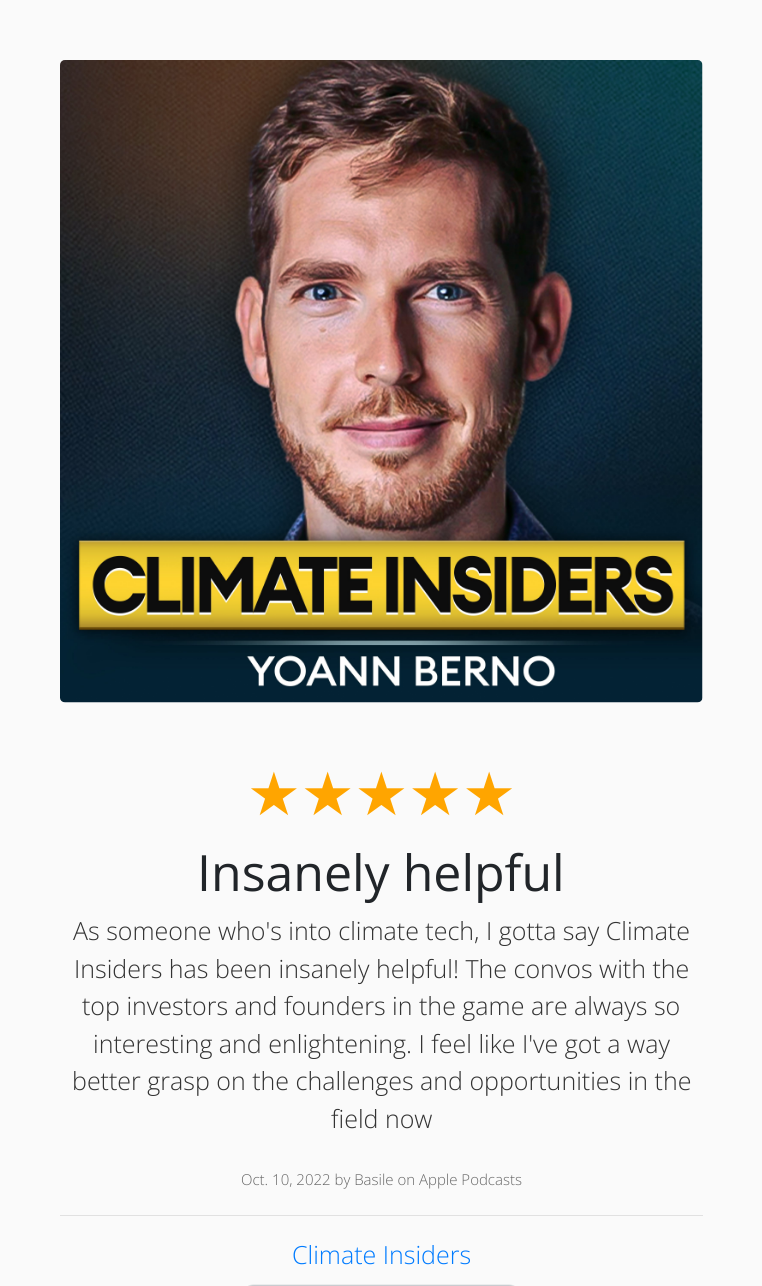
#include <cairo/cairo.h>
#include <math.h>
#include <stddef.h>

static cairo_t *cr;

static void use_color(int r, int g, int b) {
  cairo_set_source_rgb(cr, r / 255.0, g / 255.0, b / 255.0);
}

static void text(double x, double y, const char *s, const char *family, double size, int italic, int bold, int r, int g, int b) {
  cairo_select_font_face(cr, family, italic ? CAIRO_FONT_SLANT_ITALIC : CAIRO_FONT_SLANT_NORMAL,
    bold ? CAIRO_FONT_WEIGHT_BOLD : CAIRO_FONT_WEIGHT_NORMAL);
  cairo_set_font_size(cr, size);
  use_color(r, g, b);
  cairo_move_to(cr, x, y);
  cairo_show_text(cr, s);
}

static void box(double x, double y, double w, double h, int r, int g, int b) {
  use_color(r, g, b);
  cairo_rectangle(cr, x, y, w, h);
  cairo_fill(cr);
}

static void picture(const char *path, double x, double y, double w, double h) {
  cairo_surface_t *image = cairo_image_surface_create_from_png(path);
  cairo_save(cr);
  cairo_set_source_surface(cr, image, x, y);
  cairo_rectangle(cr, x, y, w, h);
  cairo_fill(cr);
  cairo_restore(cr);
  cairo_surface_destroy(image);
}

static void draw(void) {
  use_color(250, 250, 250);
  cairo_paint(cr);
  picture("img_01.png", 60, 60, 643, 643);
  box(60, 1215, 643, 1, 225, 225, 225);
  picture("img_02.png", 248, 1284, 267, 2);
  text(247, 815, "★★★★★", "DejaVu Sans", 60, 0, 0, 255, 165, 0);
  text(197, 891, "Insanely helpful", "Open Sans", 50, 0, 0, 33, 37, 41);
  text(73, 940, "As someone who's into climate tech, I gotta say Climate", "Open Sans Light", 25, 0, 0, 51, 51, 51);
  text(74, 978, "Insiders has been insanely helpful! The convos with the", "Open Sans Light", 25, 0, 0, 51, 51, 51);
  text(82, 1015, "top investors and founders in the game are always so", "Open Sans Light", 25, 0, 0, 51, 51, 51);
  text(93, 1053, "interesting and enlightening. I feel like I've got a way", "Open Sans Light", 25, 0, 0, 51, 51, 51);
  text(72, 1090, "better grasp on the challenges and opportunities in the", "Open Sans Light", 25, 0, 0, 51, 51, 51);
  text(331, 1128, "field now", "Open Sans Light", 25, 0, 0, 51, 51, 51);
  text(241, 1185, "Oct. 10, 2022 by Basile on Apple Podcasts", "Open Sans Light", 15, 0, 0, 102, 102, 102);
  text(292, 1264, "Climate Insiders", "Open Sans Light", 25, 0, 0, 0, 123, 255);
}

int main(void) {
  cairo_surface_t *surface = cairo_image_surface_create(CAIRO_FORMAT_RGB24, 762, 1286);
  cr = cairo_create(surface);
  cairo_font_options_t *options = cairo_font_options_create();
  cairo_font_options_set_hint_metrics(options, CAIRO_HINT_METRICS_OFF);
  cairo_font_options_set_hint_style(options, CAIRO_HINT_STYLE_NONE);
  cairo_set_font_options(cr, options);
  cairo_set_miter_limit(cr, 4);
  draw();
  cairo_surface_write_to_png(surface, "out.png");
  cairo_font_options_destroy(options);
  cairo_destroy(cr);
  cairo_surface_destroy(surface);
  return 0;
}
